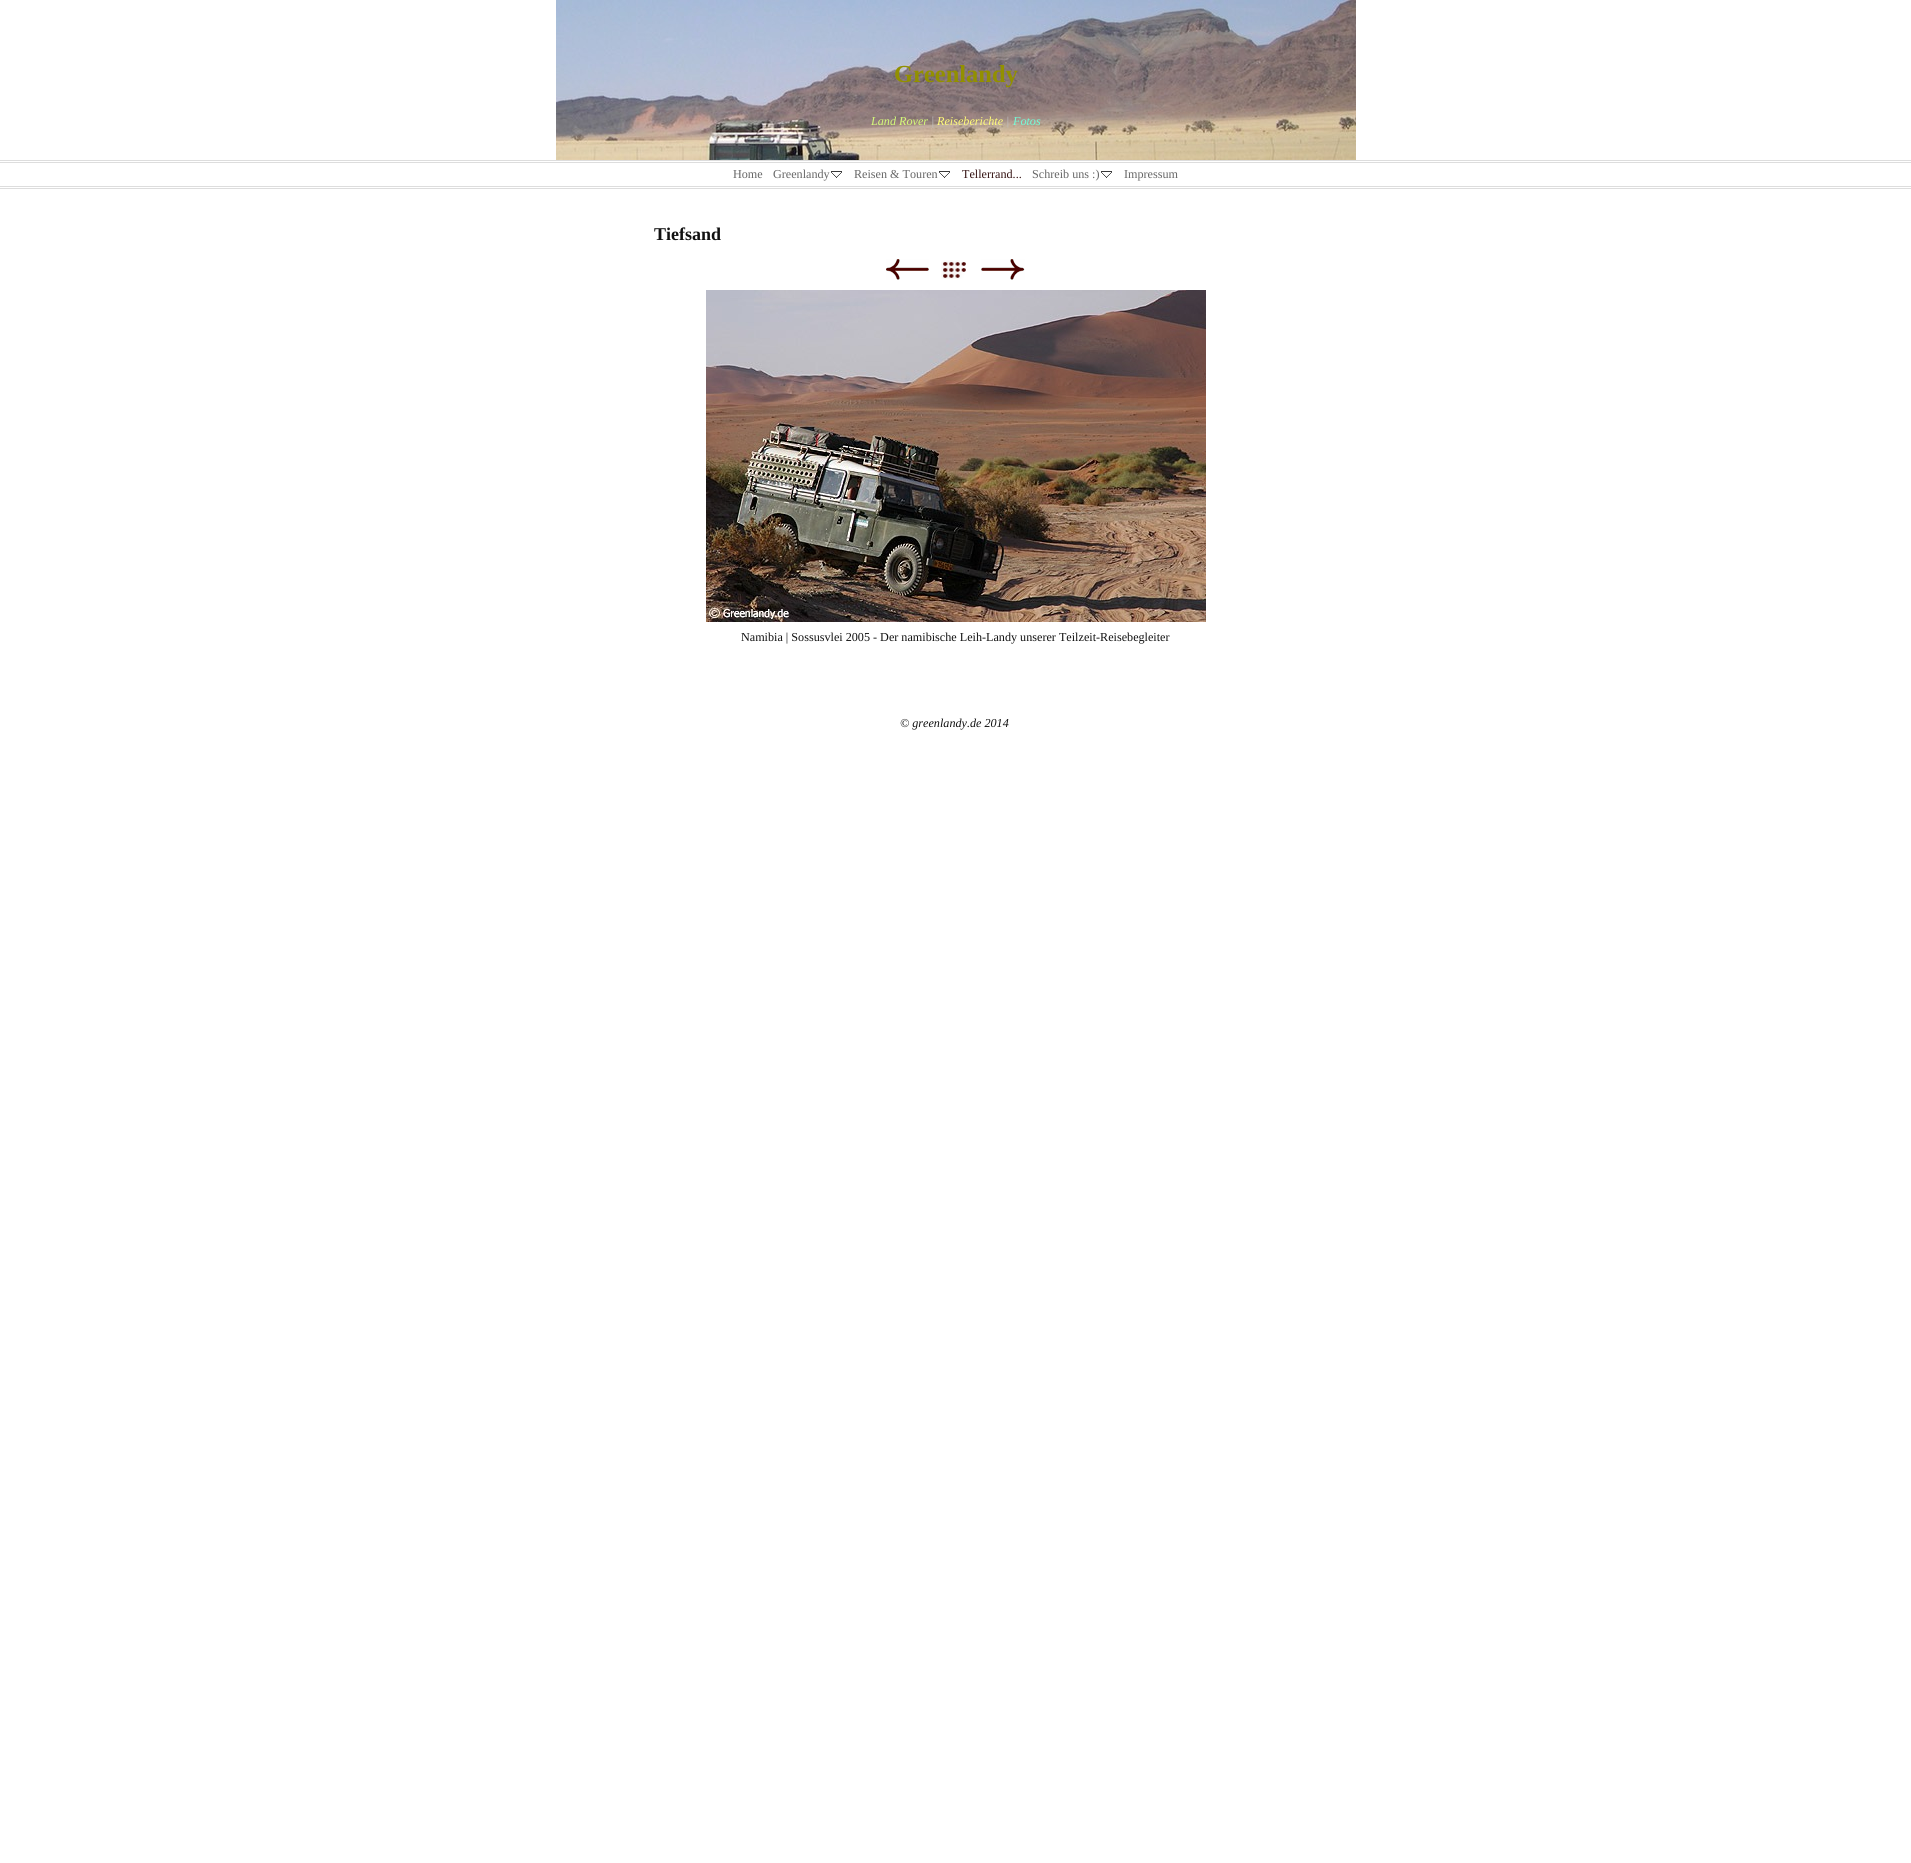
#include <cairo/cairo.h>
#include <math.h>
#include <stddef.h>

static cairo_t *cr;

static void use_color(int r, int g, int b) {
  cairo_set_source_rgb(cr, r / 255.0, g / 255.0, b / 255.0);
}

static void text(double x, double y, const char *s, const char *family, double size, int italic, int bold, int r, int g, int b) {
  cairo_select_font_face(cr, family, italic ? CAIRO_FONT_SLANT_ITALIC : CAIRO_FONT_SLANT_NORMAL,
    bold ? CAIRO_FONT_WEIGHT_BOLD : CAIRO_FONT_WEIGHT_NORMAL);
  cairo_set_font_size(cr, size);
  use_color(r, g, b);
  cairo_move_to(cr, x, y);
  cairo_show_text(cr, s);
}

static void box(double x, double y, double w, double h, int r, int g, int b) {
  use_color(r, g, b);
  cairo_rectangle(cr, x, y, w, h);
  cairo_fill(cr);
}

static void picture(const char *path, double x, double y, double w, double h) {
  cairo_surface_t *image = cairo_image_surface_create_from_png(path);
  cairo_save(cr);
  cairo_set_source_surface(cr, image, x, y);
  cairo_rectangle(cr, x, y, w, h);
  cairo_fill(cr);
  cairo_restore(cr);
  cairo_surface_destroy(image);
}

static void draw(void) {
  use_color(255, 255, 255);
  cairo_paint(cr);
  picture("img_01.png", 556, 0, 800, 160);
  box(0, 160, 1911, 1, 221, 221, 221);
  box(0, 162, 1911, 1, 221, 221, 221);
  box(0, 186, 1911, 1, 221, 221, 221);
  box(0, 188, 1911, 1, 221, 221, 221);
  picture("img_02.png", 831, 171, 11, 7);
  picture("img_02.png", 939, 171, 11, 7);
  picture("img_02.png", 1101, 171, 11, 7);
  picture("img_03.png", 886, 259, 43, 21);
  picture("img_04.png", 963, 262, 3, 16);
  picture("img_05.png", 941, 260, 25, 19);
  picture("img_06.png", 981, 259, 44, 21);
  picture("img_07.png", 706, 290, 500, 332);
  text(894, 82, "Greenlandy", "Liberation Serif", 24.5, 0, 1, 146, 144, 0);
  text(871, 125, "Land Rover", "Liberation Serif", 12.15, 1, 0, 212, 251, 121);
  text(931, 125, "|", "Liberation Serif", 12.15, 1, 0, 192, 192, 192);
  text(937, 125, "Reiseberichte", "Liberation Serif", 12.15, 1, 0, 255, 252, 121);
  text(1006, 125, "|", "Liberation Serif", 12.15, 1, 0, 192, 192, 192);
  text(1013, 125, "Fotos", "Liberation Serif", 12.15, 1, 0, 115, 252, 214);
  text(733, 178, "Home", "Liberation Serif", 12.15, 0, 0, 102, 102, 102);
  text(773, 178, "Greenlandy", "Liberation Serif", 12.15, 0, 0, 102, 102, 102);
  text(854, 178, "Reisen & Touren", "Liberation Serif", 12.15, 0, 0, 102, 102, 102);
  text(962, 178, "Tellerrand...", "Liberation Serif", 12.15, 0, 0, 51, 17, 17);
  text(1032, 178, "Schreib uns :)", "Liberation Serif", 12.15, 0, 0, 102, 102, 102);
  text(1124, 178, "Impressum", "Liberation Serif", 12.15, 0, 0, 102, 102, 102);
  text(654, 240, "Tiefsand", "Liberation Serif", 18, 0, 1, 17, 17, 17);
  text(741, 641, "Namibia | Sossusvlei 2005 - Der namibische Leih-Landy unserer Teilzeit-Reisebegleiter", "Liberation Serif", 12.15, 0, 0, 17, 17, 17);
  text(900, 727, "© greenlandy.de 2014", "Liberation Serif", 12.15, 1, 0, 17, 17, 17);
}

int main(void) {
  cairo_surface_t *surface = cairo_image_surface_create(CAIRO_FORMAT_RGB24, 1911, 1863);
  cr = cairo_create(surface);
  cairo_font_options_t *options = cairo_font_options_create();
  cairo_font_options_set_hint_metrics(options, CAIRO_HINT_METRICS_OFF);
  cairo_font_options_set_hint_style(options, CAIRO_HINT_STYLE_NONE);
  cairo_set_font_options(cr, options);
  cairo_set_miter_limit(cr, 4);
  draw();
  cairo_surface_write_to_png(surface, "out.png");
  cairo_font_options_destroy(options);
  cairo_destroy(cr);
  cairo_surface_destroy(surface);
  return 0;
}
